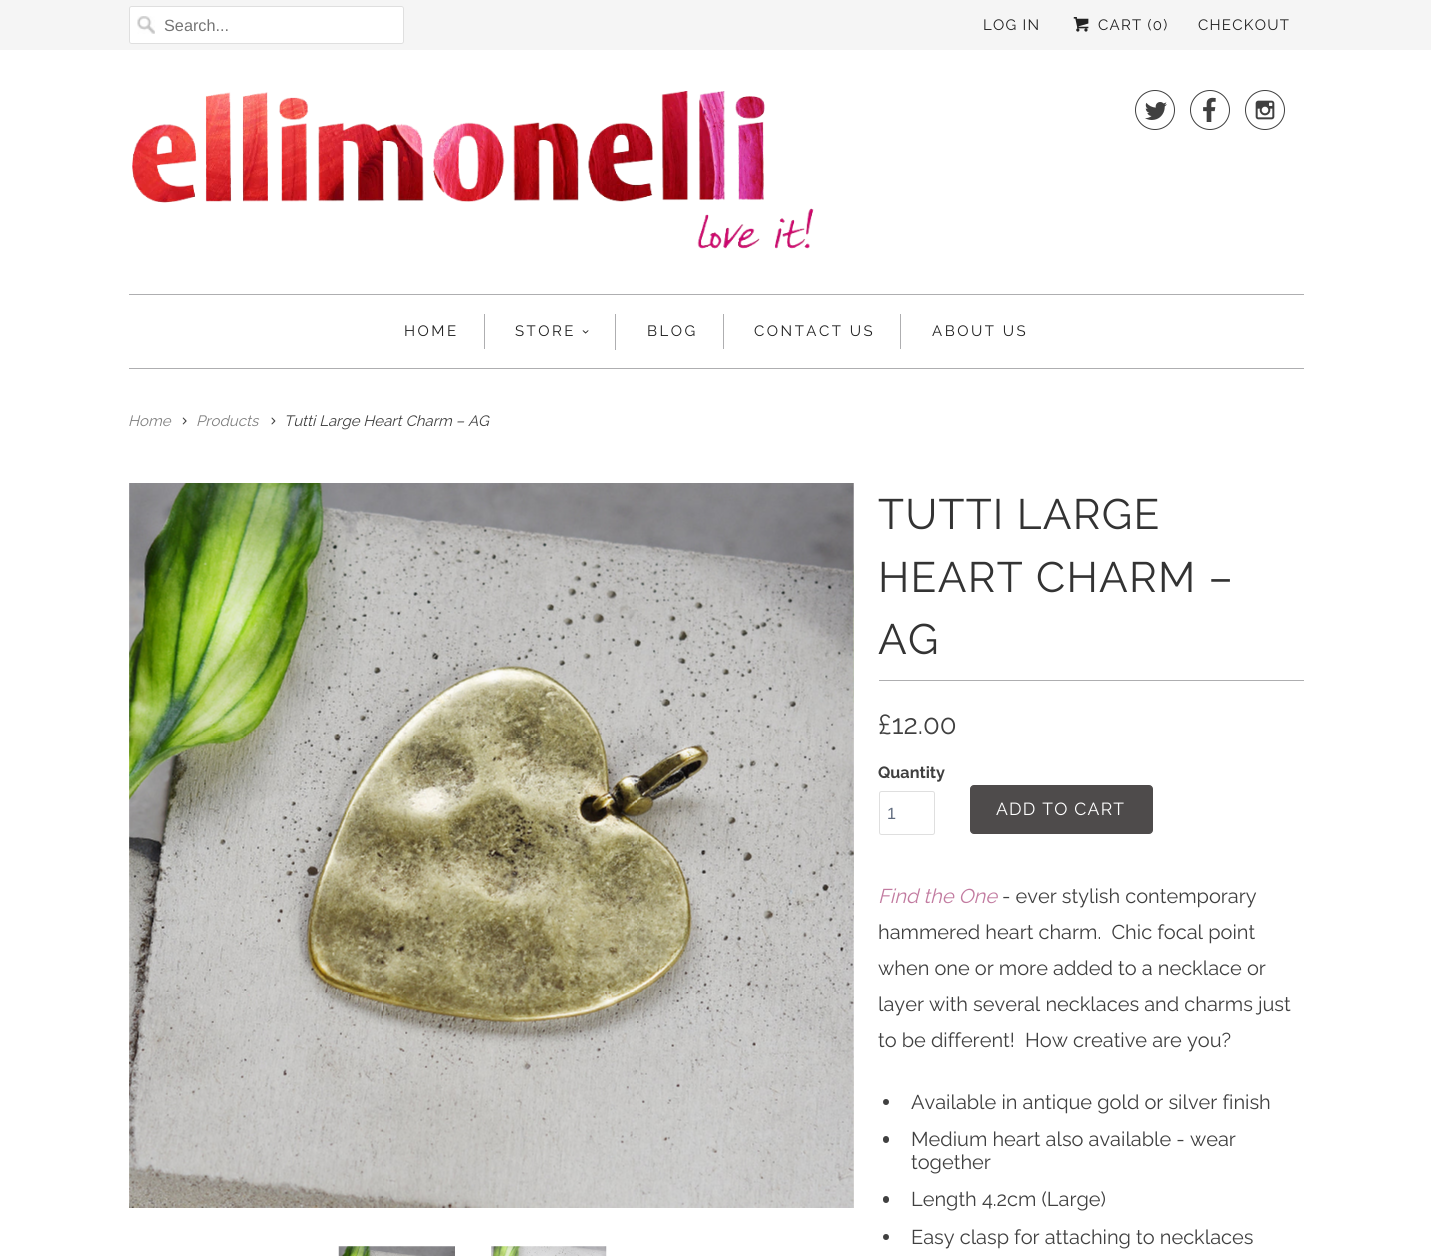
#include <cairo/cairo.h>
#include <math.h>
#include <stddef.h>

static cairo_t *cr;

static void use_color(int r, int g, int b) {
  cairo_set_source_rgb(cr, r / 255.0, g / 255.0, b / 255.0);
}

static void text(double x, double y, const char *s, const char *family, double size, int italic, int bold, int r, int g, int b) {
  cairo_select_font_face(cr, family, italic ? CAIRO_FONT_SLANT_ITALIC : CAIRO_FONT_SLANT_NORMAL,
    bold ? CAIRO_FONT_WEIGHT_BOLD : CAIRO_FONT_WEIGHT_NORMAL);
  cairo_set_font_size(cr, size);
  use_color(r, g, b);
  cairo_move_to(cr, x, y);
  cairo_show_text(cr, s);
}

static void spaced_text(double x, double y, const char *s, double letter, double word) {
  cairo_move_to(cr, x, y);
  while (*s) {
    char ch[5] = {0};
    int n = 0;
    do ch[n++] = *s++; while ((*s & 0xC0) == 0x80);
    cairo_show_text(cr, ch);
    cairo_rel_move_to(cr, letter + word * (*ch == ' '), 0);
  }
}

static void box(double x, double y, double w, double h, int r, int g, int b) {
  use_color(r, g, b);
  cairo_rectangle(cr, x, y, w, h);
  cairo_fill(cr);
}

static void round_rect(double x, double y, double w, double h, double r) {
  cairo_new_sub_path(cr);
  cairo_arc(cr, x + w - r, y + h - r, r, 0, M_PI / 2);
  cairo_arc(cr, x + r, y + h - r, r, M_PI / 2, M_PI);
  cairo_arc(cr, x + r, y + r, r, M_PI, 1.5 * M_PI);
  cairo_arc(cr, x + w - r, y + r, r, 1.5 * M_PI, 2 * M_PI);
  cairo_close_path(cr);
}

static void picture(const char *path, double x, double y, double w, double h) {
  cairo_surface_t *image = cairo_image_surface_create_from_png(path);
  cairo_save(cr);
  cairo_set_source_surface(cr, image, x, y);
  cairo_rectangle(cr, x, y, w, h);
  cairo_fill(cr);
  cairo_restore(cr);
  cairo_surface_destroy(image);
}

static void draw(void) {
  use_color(255, 255, 255);
  cairo_paint(cr);
  box(0, 0, 1431, 50, 245, 245, 245);
  use_color(255, 255, 255);
  round_rect(129, 6, 275, 38, 2.5);
  cairo_fill(cr);
  picture("img_01.png", 137, 16, 18, 18);
  round_rect(129.5, 6.5, 274, 37, 2);
  use_color(223, 223, 223);
  cairo_set_line_width(cr, 1);
  cairo_stroke(cr);
  picture("img_02.png", 1073, 17, 16, 15);
  picture("img_03.png", 132, 91, 682, 158);
  picture("img_04.png", 1135, 90, 40, 40);
  picture("img_05.png", 1190, 90, 40, 40);
  picture("img_06.png", 1245, 90, 40, 40);
  box(129, 294, 1175, 1, 174, 174, 176);
  box(129, 368, 1175, 1, 174, 174, 176);
  box(484, 314, 1, 35, 174, 174, 176);
  box(615, 314, 1, 36, 174, 174, 176);
  picture("img_07.png", 582, 330, 7, 4);
  box(723, 314, 1, 35, 174, 174, 176);
  box(900, 314, 1, 35, 174, 174, 176);
  picture("img_08.png", 182, 417, 5, 8);
  picture("img_09.png", 271, 417, 5, 8);
  picture("img_11.png", 853, 483, 1, 725);
  picture("img_10.png", 129, 483, 725, 725);
  picture("img_12.png", 338, 1246, 117, 10);
  picture("img_13.png", 491, 1246, 116, 10);
  box(879, 680, 425, 1, 174, 174, 176);
  round_rect(879.5, 791.5, 55, 43, 2);
  use_color(223, 223, 223);
  cairo_stroke(cr);
  use_color(78, 75, 75);
  round_rect(970.5, 785.5, 182, 48, 3.5);
  cairo_fill_preserve(cr);
  cairo_stroke(cr);
  use_color(64, 64, 64);
  cairo_arc(cr, 886, 1102, 3, 0, 2 * M_PI);
  cairo_fill(cr);
  round_rect(883, 1136, 6, 7, 3);
  cairo_fill(cr);
  round_rect(883, 1196, 6, 7, 3);
  cairo_fill(cr);
  cairo_arc(cr, 886, 1237, 3, 0, 2 * M_PI);
  cairo_fill(cr);
  text(164, 31, "Search...", "Liberation Sans", 16.25, 0, 0, 117, 117, 117);
  cairo_select_font_face(cr, "Raleway", CAIRO_FONT_SLANT_NORMAL, CAIRO_FONT_WEIGHT_NORMAL);
  cairo_set_font_size(cr, 15);
  use_color(34, 34, 34);
  spaced_text(983, 30, "LOG IN", 1.25, 0);
  spaced_text(1098, 30, "CART (0)", 1.25, 0);
  spaced_text(1198, 30, "CHECKOUT", 1.25, 0);
  spaced_text(404, 336, "HOME", 2.5, 0);
  spaced_text(515, 336, "STORE", 2.5, 0);
  spaced_text(647, 336, "BLOG", 2.5, 0);
  spaced_text(754, 336, "CONTACT US", 2.5, 0);
  spaced_text(932, 336, "ABOUT US", 2.5, 0);
  text(128, 426, "Home", "Raleway", 15, 1, 0, 128, 128, 128);
  text(196, 426, "Products", "Raleway", 15, 1, 0, 128, 128, 128);
  text(284, 426, "Tutti Large Heart Charm – AG", "Raleway", 15, 1, 0, 64, 64, 64);
  cairo_select_font_face(cr, "Raleway", CAIRO_FONT_SLANT_NORMAL, CAIRO_FONT_WEIGHT_NORMAL);
  cairo_set_font_size(cr, 42.5);
  use_color(51, 51, 51);
  spaced_text(878, 529, "TUTTI LARGE", 1.25, 0);
  spaced_text(878, 592, "HEART CHARM –", 1.25, 0);
  spaced_text(878, 654, "AG", 1.25, 0);
  text(878, 734, "£12.00", "Raleway", 27.5, 0, 0, 64, 64, 64);
  text(878, 778, "Quantity", "Raleway", 16.25, 0, 1, 64, 64, 64);
  text(887, 819, "1", "Liberation Sans", 16.25, 0, 0, 95, 106, 125);
  cairo_select_font_face(cr, "Raleway", CAIRO_FONT_SLANT_NORMAL, CAIRO_FONT_WEIGHT_NORMAL);
  cairo_set_font_size(cr, 17.5);
  use_color(255, 255, 255);
  spaced_text(996, 815, "ADD TO CART", 1.25, 0);
  text(878, 903, "Find the One", "Raleway", 20, 1, 0, 194, 123, 160);
  text(1002, 903, "- ever stylish contemporary", "Raleway", 20, 0, 0, 64, 64, 64);
  text(878, 939, "hammered heart charm.  Chic focal point", "Raleway", 20, 0, 0, 64, 64, 64);
  text(878, 975, "when one or more added to a necklace or", "Raleway", 20, 0, 0, 64, 64, 64);
  text(878, 1011, "layer with several necklaces and charms just", "Raleway", 20, 0, 0, 64, 64, 64);
  text(878, 1047, "to be different!  How creative are you?", "Raleway", 20, 0, 0, 64, 64, 64);
  text(911, 1109, "Available in antique gold or silver finish", "Raleway", 20, 0, 0, 64, 64, 64);
  text(911, 1146, "Medium heart also available - wear", "Raleway", 20, 0, 0, 64, 64, 64);
  text(911, 1169, "together", "Raleway", 20, 0, 0, 64, 64, 64);
  text(911, 1206, "Length 4.2cm (Large)", "Raleway", 20, 0, 0, 64, 64, 64);
  text(911, 1244, "Easy clasp for attaching to necklaces", "Raleway", 20, 0, 0, 64, 64, 64);
}

int main(void) {
  cairo_surface_t *surface = cairo_image_surface_create(CAIRO_FORMAT_RGB24, 1431, 1256);
  cr = cairo_create(surface);
  cairo_font_options_t *options = cairo_font_options_create();
  cairo_font_options_set_hint_metrics(options, CAIRO_HINT_METRICS_OFF);
  cairo_font_options_set_hint_style(options, CAIRO_HINT_STYLE_NONE);
  cairo_set_font_options(cr, options);
  cairo_set_miter_limit(cr, 4);
  draw();
  cairo_surface_write_to_png(surface, "out.png");
  cairo_font_options_destroy(options);
  cairo_destroy(cr);
  cairo_surface_destroy(surface);
  return 0;
}
